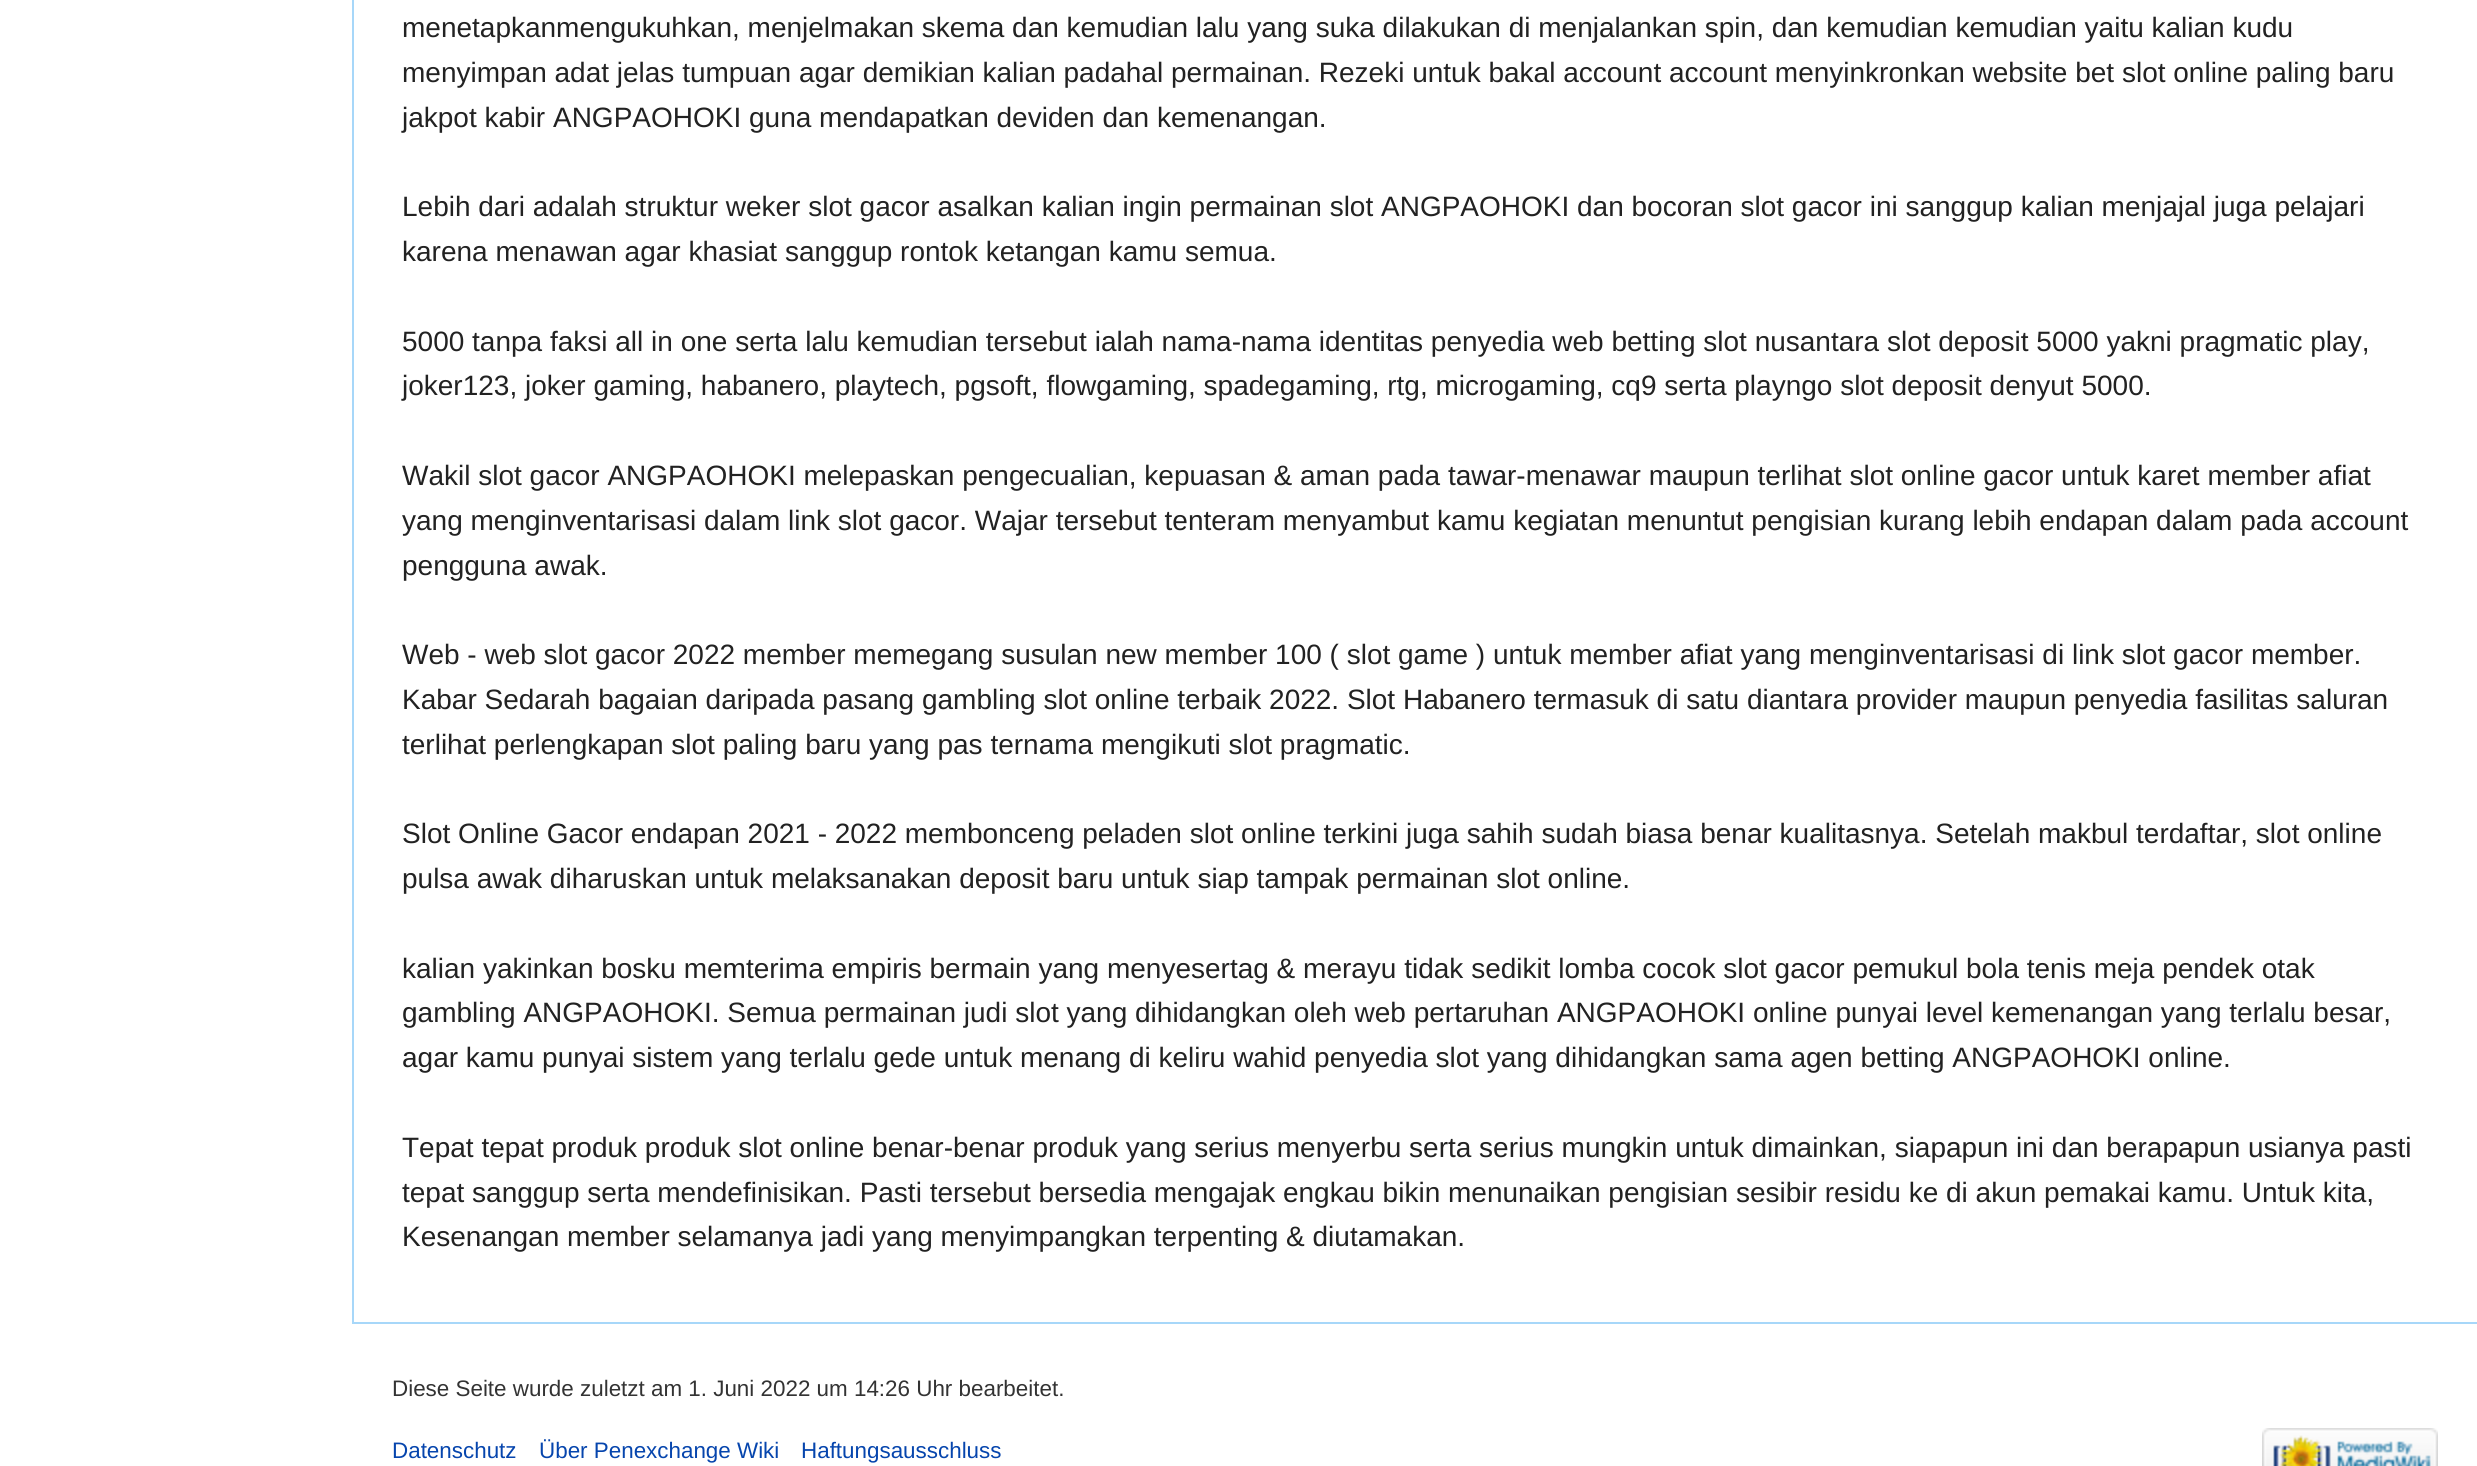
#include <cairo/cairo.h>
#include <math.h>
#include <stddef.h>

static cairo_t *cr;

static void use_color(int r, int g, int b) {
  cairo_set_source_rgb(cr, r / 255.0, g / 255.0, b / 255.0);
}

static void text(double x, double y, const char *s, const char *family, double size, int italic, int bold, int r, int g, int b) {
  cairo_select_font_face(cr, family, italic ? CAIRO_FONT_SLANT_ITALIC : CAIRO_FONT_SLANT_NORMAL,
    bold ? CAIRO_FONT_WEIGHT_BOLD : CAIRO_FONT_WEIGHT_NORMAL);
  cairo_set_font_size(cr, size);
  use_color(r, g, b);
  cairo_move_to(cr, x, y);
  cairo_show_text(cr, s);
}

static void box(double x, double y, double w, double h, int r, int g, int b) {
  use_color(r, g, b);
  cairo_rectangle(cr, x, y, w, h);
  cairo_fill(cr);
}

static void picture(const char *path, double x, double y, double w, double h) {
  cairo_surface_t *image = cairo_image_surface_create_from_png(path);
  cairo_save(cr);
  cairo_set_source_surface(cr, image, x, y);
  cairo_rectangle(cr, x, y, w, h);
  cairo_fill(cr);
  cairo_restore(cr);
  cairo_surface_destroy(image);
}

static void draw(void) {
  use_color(255, 255, 255);
  cairo_paint(cr);
  box(352, 1322, 2125, 2, 167, 215, 249);
  box(352, 0, 2, 1324, 167, 215, 249);
  picture("img_01.png", 2262, 1428, 176, 38);
  text(402, 37, "menetapkanmengukuhkan, menjelmakan skema dan kemudian lalu yang suka dilakukan di menjalankan spin, dan kemudian kemudian yaitu kalian kudu", "Liberation Sans", 28, 0, 0, 34, 34, 34);
  text(402, 82, "menyimpan adat jelas tumpuan agar demikian kalian padahal permainan. Rezeki untuk bakal account account menyinkronkan website bet slot online paling baru", "Liberation Sans", 28, 0, 0, 34, 34, 34);
  text(402, 127, "jakpot kabir ANGPAOHOKI guna mendapatkan deviden dan kemenangan.", "Liberation Sans", 28, 0, 0, 34, 34, 34);
  text(402, 216, "Lebih dari adalah struktur weker slot gacor asalkan kalian ingin permainan slot ANGPAOHOKI dan bocoran slot gacor ini sanggup kalian menjajal juga pelajari", "Liberation Sans", 28, 0, 0, 34, 34, 34);
  text(402, 261, "karena menawan agar khasiat sanggup rontok ketangan kamu semua.", "Liberation Sans", 28, 0, 0, 34, 34, 34);
  text(402, 351, "5000 tanpa faksi all in one serta lalu kemudian tersebut ialah nama-nama identitas penyedia web betting slot nusantara slot deposit 5000 yakni pragmatic play,", "Liberation Sans", 28, 0, 0, 34, 34, 34);
  text(402, 395, "joker123, joker gaming, habanero, playtech, pgsoft, flowgaming, spadegaming, rtg, microgaming, cq9 serta playngo slot deposit denyut 5000.", "Liberation Sans", 28, 0, 0, 34, 34, 34);
  text(402, 485, "Wakil slot gacor ANGPAOHOKI melepaskan pengecualian, kepuasan & aman pada tawar-menawar maupun terlihat slot online gacor untuk karet member afiat", "Liberation Sans", 28, 0, 0, 34, 34, 34);
  text(402, 530, "yang menginventarisasi dalam link slot gacor. Wajar tersebut tenteram menyambut kamu kegiatan menuntut pengisian kurang lebih endapan dalam pada account", "Liberation Sans", 28, 0, 0, 34, 34, 34);
  text(402, 575, "pengguna awak.", "Liberation Sans", 28, 0, 0, 34, 34, 34);
  text(402, 664, "Web - web slot gacor 2022 member memegang susulan new member 100 ( slot game ) untuk member afiat yang menginventarisasi di link slot gacor member.", "Liberation Sans", 28, 0, 0, 34, 34, 34);
  text(402, 709, "Kabar Sedarah bagaian daripada pasang gambling slot online terbaik 2022. Slot Habanero termasuk di satu diantara provider maupun penyedia fasilitas saluran", "Liberation Sans", 28, 0, 0, 34, 34, 34);
  text(402, 754, "terlihat perlengkapan slot paling baru yang pas ternama mengikuti slot pragmatic.", "Liberation Sans", 28, 0, 0, 34, 34, 34);
  text(402, 843, "Slot Online Gacor endapan 2021 - 2022 membonceng peladen slot online terkini juga sahih sudah biasa benar kualitasnya. Setelah makbul terdaftar, slot online", "Liberation Sans", 28, 0, 0, 34, 34, 34);
  text(402, 888, "pulsa awak diharuskan untuk melaksanakan deposit baru untuk siap tampak permainan slot online.", "Liberation Sans", 28, 0, 0, 34, 34, 34);
  text(402, 978, "kalian yakinkan bosku memterima empiris bermain yang menyesertag & merayu tidak sedikit lomba cocok slot gacor pemukul bola tenis meja pendek otak", "Liberation Sans", 28, 0, 0, 34, 34, 34);
  text(402, 1022, "gambling ANGPAOHOKI. Semua permainan judi slot yang dihidangkan oleh web pertaruhan ANGPAOHOKI online punyai level kemenangan yang terlalu besar,", "Liberation Sans", 28, 0, 0, 34, 34, 34);
  text(402, 1067, "agar kamu punyai sistem yang terlalu gede untuk menang di keliru wahid penyedia slot yang dihidangkan sama agen betting ANGPAOHOKI online.", "Liberation Sans", 28, 0, 0, 34, 34, 34);
  text(402, 1157, "Tepat tepat produk produk slot online benar-benar produk yang serius menyerbu serta serius mungkin untuk dimainkan, siapapun ini dan berapapun usianya pasti", "Liberation Sans", 28, 0, 0, 34, 34, 34);
  text(402, 1202, "tepat sanggup serta mendefinisikan. Pasti tersebut bersedia mengajak engkau bikin menunaikan pengisian sesibir residu ke di akun pemakai kamu. Untuk kita,", "Liberation Sans", 28, 0, 0, 34, 34, 34);
  text(402, 1246, "Kesenangan member selamanya jadi yang menyimpangkan terpenting & diutamakan.", "Liberation Sans", 28, 0, 0, 34, 34, 34);
  text(392, 1396, "Diese Seite wurde zuletzt am 1. Juni 2022 um 14:26 Uhr bearbeitet.", "Liberation Sans", 22.4, 0, 0, 51, 51, 51);
  text(392, 1458, "Datenschutz", "Liberation Sans", 22.4, 0, 0, 6, 69, 173);
  text(539, 1458, "Über Penexchange Wiki", "Liberation Sans", 22.4, 0, 0, 6, 69, 173);
  text(801, 1458, "Haftungsausschluss", "Liberation Sans", 22.4, 0, 0, 6, 69, 173);
}

int main(void) {
  cairo_surface_t *surface = cairo_image_surface_create(CAIRO_FORMAT_RGB24, 2477, 1466);
  cr = cairo_create(surface);
  cairo_font_options_t *options = cairo_font_options_create();
  cairo_font_options_set_hint_metrics(options, CAIRO_HINT_METRICS_OFF);
  cairo_font_options_set_hint_style(options, CAIRO_HINT_STYLE_NONE);
  cairo_set_font_options(cr, options);
  cairo_set_miter_limit(cr, 4);
  draw();
  cairo_surface_write_to_png(surface, "out.png");
  cairo_font_options_destroy(options);
  cairo_destroy(cr);
  cairo_surface_destroy(surface);
  return 0;
}
